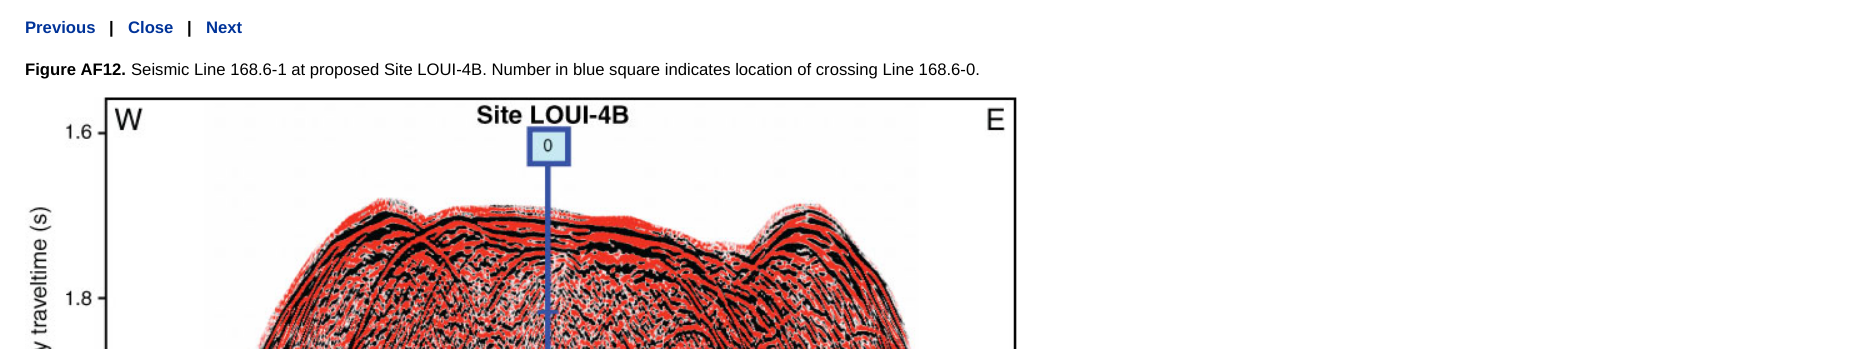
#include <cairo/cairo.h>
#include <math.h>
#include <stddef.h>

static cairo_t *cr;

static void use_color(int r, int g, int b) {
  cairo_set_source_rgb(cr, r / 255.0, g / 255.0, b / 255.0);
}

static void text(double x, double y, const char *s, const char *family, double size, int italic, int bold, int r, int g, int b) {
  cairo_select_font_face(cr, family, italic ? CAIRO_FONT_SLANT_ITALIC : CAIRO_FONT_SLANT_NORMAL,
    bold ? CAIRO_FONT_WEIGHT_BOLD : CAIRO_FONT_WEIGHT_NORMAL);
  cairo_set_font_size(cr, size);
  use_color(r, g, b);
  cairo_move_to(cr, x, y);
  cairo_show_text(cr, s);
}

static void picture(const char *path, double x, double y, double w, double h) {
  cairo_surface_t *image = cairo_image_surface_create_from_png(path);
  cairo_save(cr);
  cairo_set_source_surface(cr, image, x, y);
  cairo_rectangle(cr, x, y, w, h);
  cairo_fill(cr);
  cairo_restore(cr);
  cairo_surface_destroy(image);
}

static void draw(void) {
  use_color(255, 255, 255);
  cairo_paint(cr);
  picture("img_01.png", 25, 97, 992, 252);
  text(25, 33, "Previous", "Liberation Sans", 16.67, 0, 1, 0, 51, 153);
  text(109, 33, "|", "Liberation Sans", 16.67, 0, 1, 0, 0, 0);
  text(128, 33, "Close", "Liberation Sans", 16.67, 0, 1, 0, 51, 153);
  text(187, 33, "|", "Liberation Sans", 16.67, 0, 1, 0, 0, 0);
  text(206, 33, "Next", "Liberation Sans", 16.67, 0, 1, 0, 51, 153);
  text(25, 75, "Figure AF12.", "Liberation Sans", 16.67, 0, 1, 0, 0, 0);
  text(131, 75, "Seismic Line 168.6-1 at proposed Site LOUI-4B. Number in blue square indicates location of crossing Line 168.6-0.", "Liberation Sans", 16.67, 0, 0, 0, 0, 0);
}

int main(void) {
  cairo_surface_t *surface = cairo_image_surface_create(CAIRO_FORMAT_RGB24, 1870, 349);
  cr = cairo_create(surface);
  cairo_font_options_t *options = cairo_font_options_create();
  cairo_font_options_set_hint_metrics(options, CAIRO_HINT_METRICS_OFF);
  cairo_font_options_set_hint_style(options, CAIRO_HINT_STYLE_NONE);
  cairo_set_font_options(cr, options);
  cairo_set_miter_limit(cr, 4);
  draw();
  cairo_surface_write_to_png(surface, "out.png");
  cairo_font_options_destroy(options);
  cairo_destroy(cr);
  cairo_surface_destroy(surface);
  return 0;
}
